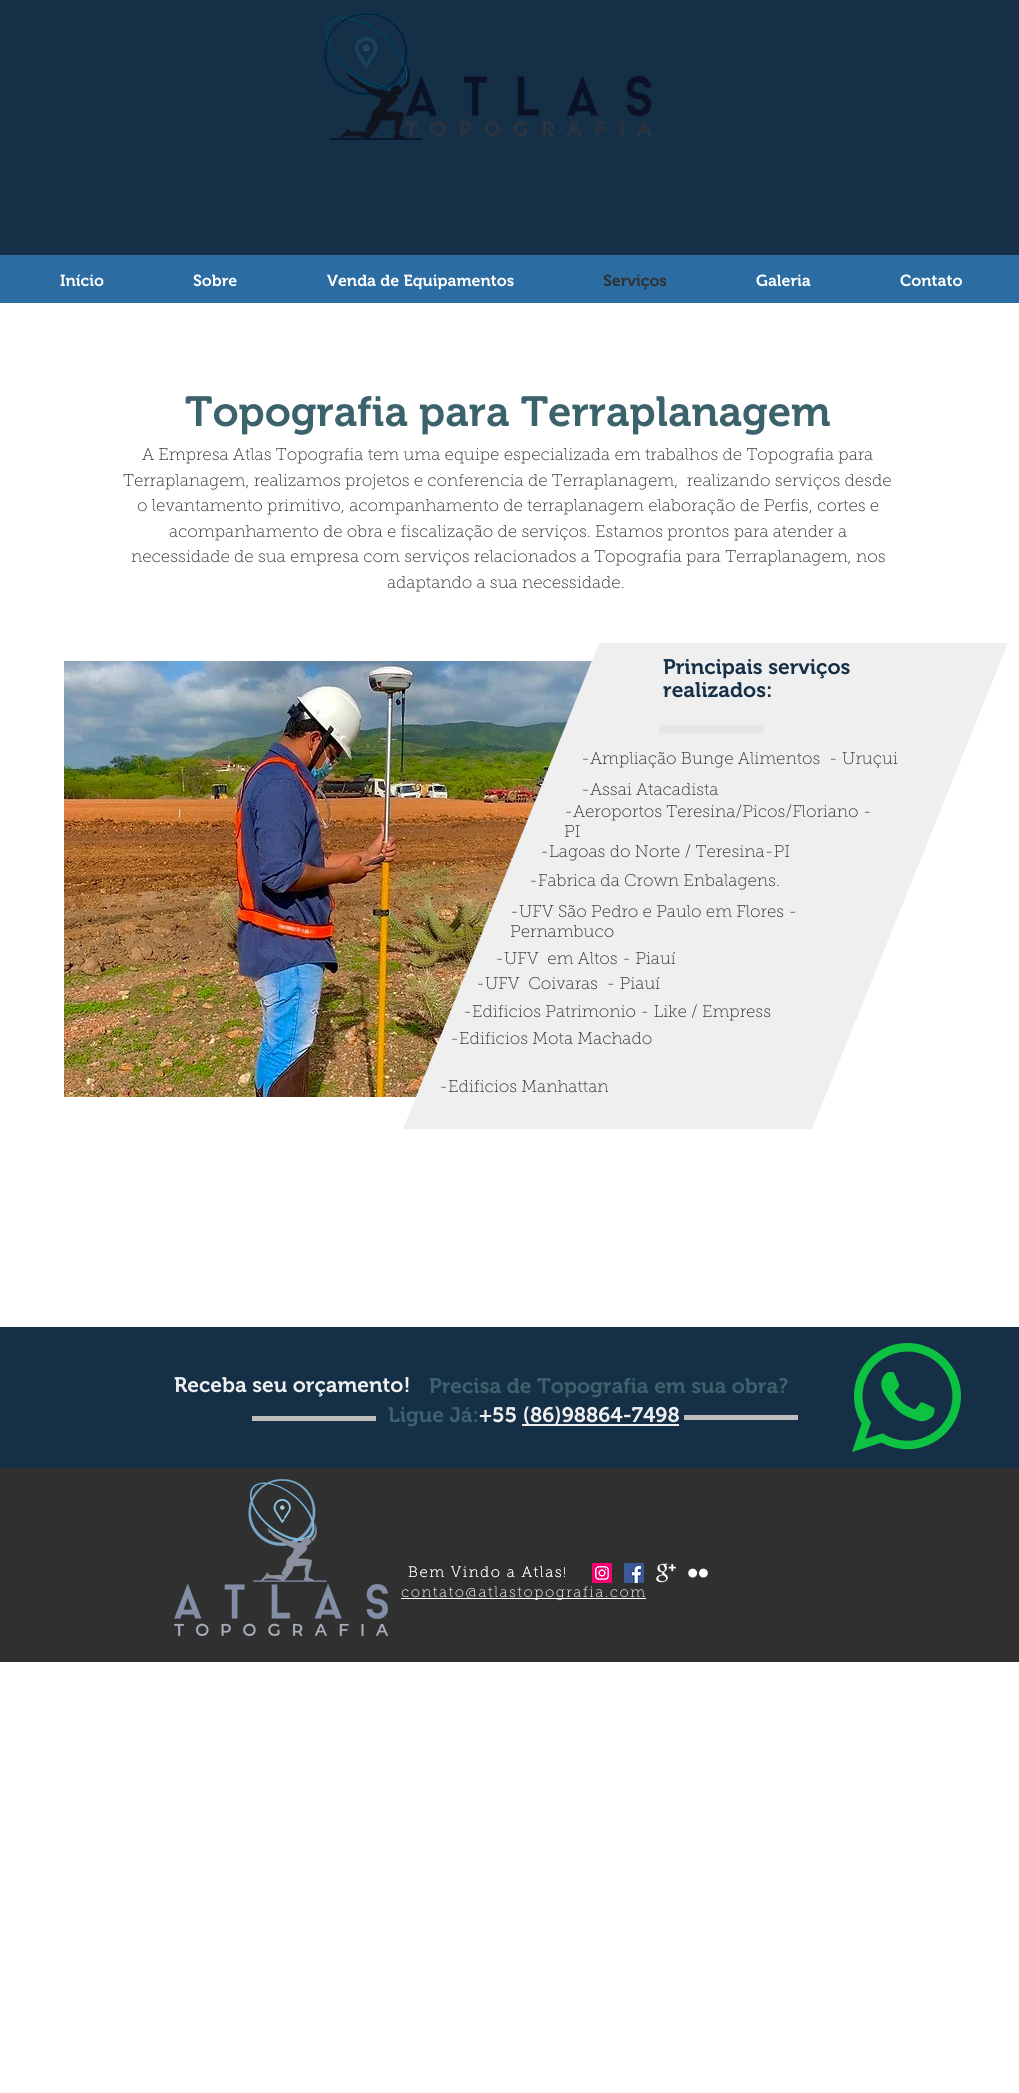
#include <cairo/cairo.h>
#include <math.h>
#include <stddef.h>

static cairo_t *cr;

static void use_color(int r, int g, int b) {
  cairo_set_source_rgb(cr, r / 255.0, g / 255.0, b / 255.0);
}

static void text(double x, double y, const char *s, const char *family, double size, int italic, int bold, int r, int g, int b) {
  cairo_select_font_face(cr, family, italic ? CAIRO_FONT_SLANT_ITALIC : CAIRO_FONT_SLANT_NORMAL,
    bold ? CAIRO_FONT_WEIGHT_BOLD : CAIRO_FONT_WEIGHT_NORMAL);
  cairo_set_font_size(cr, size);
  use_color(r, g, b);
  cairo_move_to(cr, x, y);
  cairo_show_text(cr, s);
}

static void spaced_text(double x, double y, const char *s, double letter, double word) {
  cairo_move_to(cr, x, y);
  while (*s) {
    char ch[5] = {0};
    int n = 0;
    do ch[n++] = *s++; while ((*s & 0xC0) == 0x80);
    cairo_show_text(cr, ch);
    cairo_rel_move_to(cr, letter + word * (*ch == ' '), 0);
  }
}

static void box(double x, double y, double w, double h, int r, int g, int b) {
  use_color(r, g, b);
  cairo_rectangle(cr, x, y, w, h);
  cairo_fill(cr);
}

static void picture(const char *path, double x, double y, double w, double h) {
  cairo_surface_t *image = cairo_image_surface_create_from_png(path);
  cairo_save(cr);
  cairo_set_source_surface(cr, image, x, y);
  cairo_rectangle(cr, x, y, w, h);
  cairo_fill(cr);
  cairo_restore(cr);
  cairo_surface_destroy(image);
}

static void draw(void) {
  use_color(255, 255, 255);
  cairo_paint(cr);
  box(0, 255, 1019, 48, 43, 108, 163);
  box(0, 0, 1019, 255, 21, 47, 71);
  picture("img_01.png", 323, 12, 329, 128);
  picture("img_02.png", 64, 661, 528, 436);
  use_color(239, 239, 239);
  cairo_new_path(cr);
  cairo_move_to(cr, 812, 1129);
  cairo_line_to(cr, 403, 1129);
  cairo_line_to(cr, 599, 643);
  cairo_line_to(cr, 1008, 643);
  cairo_close_path(cr);
  cairo_fill(cr);
  box(659, 725, 105, 8, 229, 229, 229);
  box(0, 1327, 1019, 141, 21, 47, 71);
  picture("img_03.png", 852, 1343, 109, 109);
  box(252, 1416, 124, 5, 191, 190, 190);
  box(522, 1424, 157, 2, 239, 239, 239);
  box(684, 1415, 114, 5, 191, 190, 190);
  box(0, 1468, 1019, 194, 48, 48, 48);
  picture("img_04.png", 174, 1479, 215, 158);
  picture("img_05.png", 592, 1563, 20, 20);
  picture("img_06.png", 624, 1563, 20, 20);
  picture("img_07.png", 656, 1563, 20, 20);
  picture("img_08.png", 688, 1568, 20, 10);
  box(401, 1598, 245, 1, 255, 255, 255);
  text(60, 286, "Início", "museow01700 SemiBold", 16, 0, 0, 255, 255, 255);
  text(193, 286, "Sobre", "museow01700 SemiBold", 16, 0, 0, 255, 255, 255);
  text(327, 286, "Venda de Equipamentos", "museow01700 SemiBold", 16, 0, 0, 255, 255, 255);
  text(603, 286, "Serviços", "museow01700 SemiBold", 16, 0, 0, 48, 48, 48);
  text(756, 286, "Galeria", "museow01700 SemiBold", 16, 0, 0, 255, 255, 255);
  text(900, 286, "Contato", "museow01700 SemiBold", 16, 0, 0, 255, 255, 255);
  text(185, 426, "Topografia para Terraplanagem", "museow01700 SemiBold", 42, 0, 0, 60, 98, 107);
  text(142, 460, "A Empresa Atlas Topografia tem uma equipe especializada em trabalhos de Topografia para", "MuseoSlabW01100 Thin", 17, 0, 0, 48, 48, 48);
  text(123, 486, "Terraplanagem, realizamos projetos e conferencia de Terraplanagem,  realizando serviços desde", "MuseoSlabW01100 Thin", 17, 0, 0, 48, 48, 48);
  text(137, 511, "o levantamento primitivo, acompanhamento de terraplanagem elaboração de Perfis, cortes e", "MuseoSlabW01100 Thin", 17, 0, 0, 48, 48, 48);
  text(169, 537, "acompanhamento de obra e fiscalização de serviços. Estamos prontos para atender a", "MuseoSlabW01100 Thin", 17, 0, 0, 48, 48, 48);
  text(131, 562, "necessidade de sua empresa com serviços relacionados a Topografia para Terraplanagem, nos", "MuseoSlabW01100 Thin", 17, 0, 0, 48, 48, 48);
  text(387, 588, "adaptando a sua necessidade.", "MuseoSlabW01100 Thin", 17, 0, 0, 48, 48, 48);
  text(663, 674, "Principais serviços", "museow01700 SemiBold", 21, 0, 0, 21, 47, 71);
  text(663, 697, "realizados:", "museow01700 SemiBold", 21, 0, 0, 21, 47, 71);
  text(581, 764, "-Ampliação Bunge Alimentos  - Uruçui", "MuseoSlabW01100 Thin", 17, 0, 0, 48, 48, 48);
  text(581, 795, "-Assai Atacadista", "MuseoSlabW01100 Thin", 17, 0, 0, 48, 48, 48);
  text(564, 817, "-Aeroportos Teresina/Picos/Floriano -", "MuseoSlabW01100 Thin", 17, 0, 0, 48, 48, 48);
  text(564, 837, "PI", "MuseoSlabW01100 Thin", 17, 0, 0, 48, 48, 48);
  text(540, 857, "-Lagoas do Norte / Teresina-PI", "MuseoSlabW01100 Thin", 17, 0, 0, 48, 48, 48);
  text(529, 886, "-Fabrica da Crown Enbalagens.", "MuseoSlabW01100 Thin", 17, 0, 0, 48, 48, 48);
  text(510, 917, "-UFV São Pedro e Paulo em Flores -", "MuseoSlabW01100 Thin", 17, 0, 0, 48, 48, 48);
  text(510, 937, "Pernambuco", "MuseoSlabW01100 Thin", 17, 0, 0, 48, 48, 48);
  text(495, 964, "-UFV  em Altos - Piauí", "MuseoSlabW01100 Thin", 17, 0, 0, 48, 48, 48);
  text(476, 989, "-UFV  Coivaras  - Piauí", "MuseoSlabW01100 Thin", 17, 0, 0, 48, 48, 48);
  text(463, 1017, "-Edificios Patrimonio - Like / Empress", "MuseoSlabW01100 Thin", 17, 0, 0, 48, 48, 48);
  text(450, 1044, "-Edificios Mota Machado", "MuseoSlabW01100 Thin", 17, 0, 0, 48, 48, 48);
  text(439, 1092, "-Edificios Manhattan", "MuseoSlabW01100 Thin", 17, 0, 0, 48, 48, 48);
  text(174, 1392, "Receba seu orçamento!", "museow01700 SemiBold", 21, 0, 0, 239, 239, 239);
  text(429, 1393, "Precisa de Topografia em sua obra?", "museow01700 SemiBold", 21, 0, 0, 60, 98, 107);
  text(388, 1422, "Ligue Já:", "museow01700 SemiBold", 21, 0, 0, 60, 98, 107);
  text(479, 1422, "+55 (86)98864-7498", "museow01700 SemiBold", 21, 0, 0, 239, 239, 239);
  cairo_select_font_face(cr, "MuseoSlabW01100 Thin", CAIRO_FONT_SLANT_NORMAL, CAIRO_FONT_WEIGHT_NORMAL);
  cairo_set_font_size(cr, 15);
  use_color(255, 255, 255);
  spaced_text(408, 1577, "Bem Vindo a Atlas", 1.5, 0);
  cairo_set_font_size(cr, 14);
  spaced_text(563, 1577, "!", 1, 0);
  cairo_set_font_size(cr, 15);
  spaced_text(408, 1577, "Bem Vindo a Atlas", 1.5, 0);
  cairo_set_font_size(cr, 14);
  spaced_text(563, 1577, "!", 1, 0);
  cairo_set_font_size(cr, 15);
  spaced_text(401, 1597, "contato@atlastopografia.com", 1.5, 0);
}

int main(void) {
  cairo_surface_t *surface = cairo_image_surface_create(CAIRO_FORMAT_RGB24, 1019, 2093);
  cr = cairo_create(surface);
  cairo_font_options_t *options = cairo_font_options_create();
  cairo_font_options_set_hint_metrics(options, CAIRO_HINT_METRICS_OFF);
  cairo_font_options_set_hint_style(options, CAIRO_HINT_STYLE_NONE);
  cairo_set_font_options(cr, options);
  cairo_set_miter_limit(cr, 4);
  draw();
  cairo_surface_write_to_png(surface, "out.png");
  cairo_font_options_destroy(options);
  cairo_destroy(cr);
  cairo_surface_destroy(surface);
  return 0;
}
